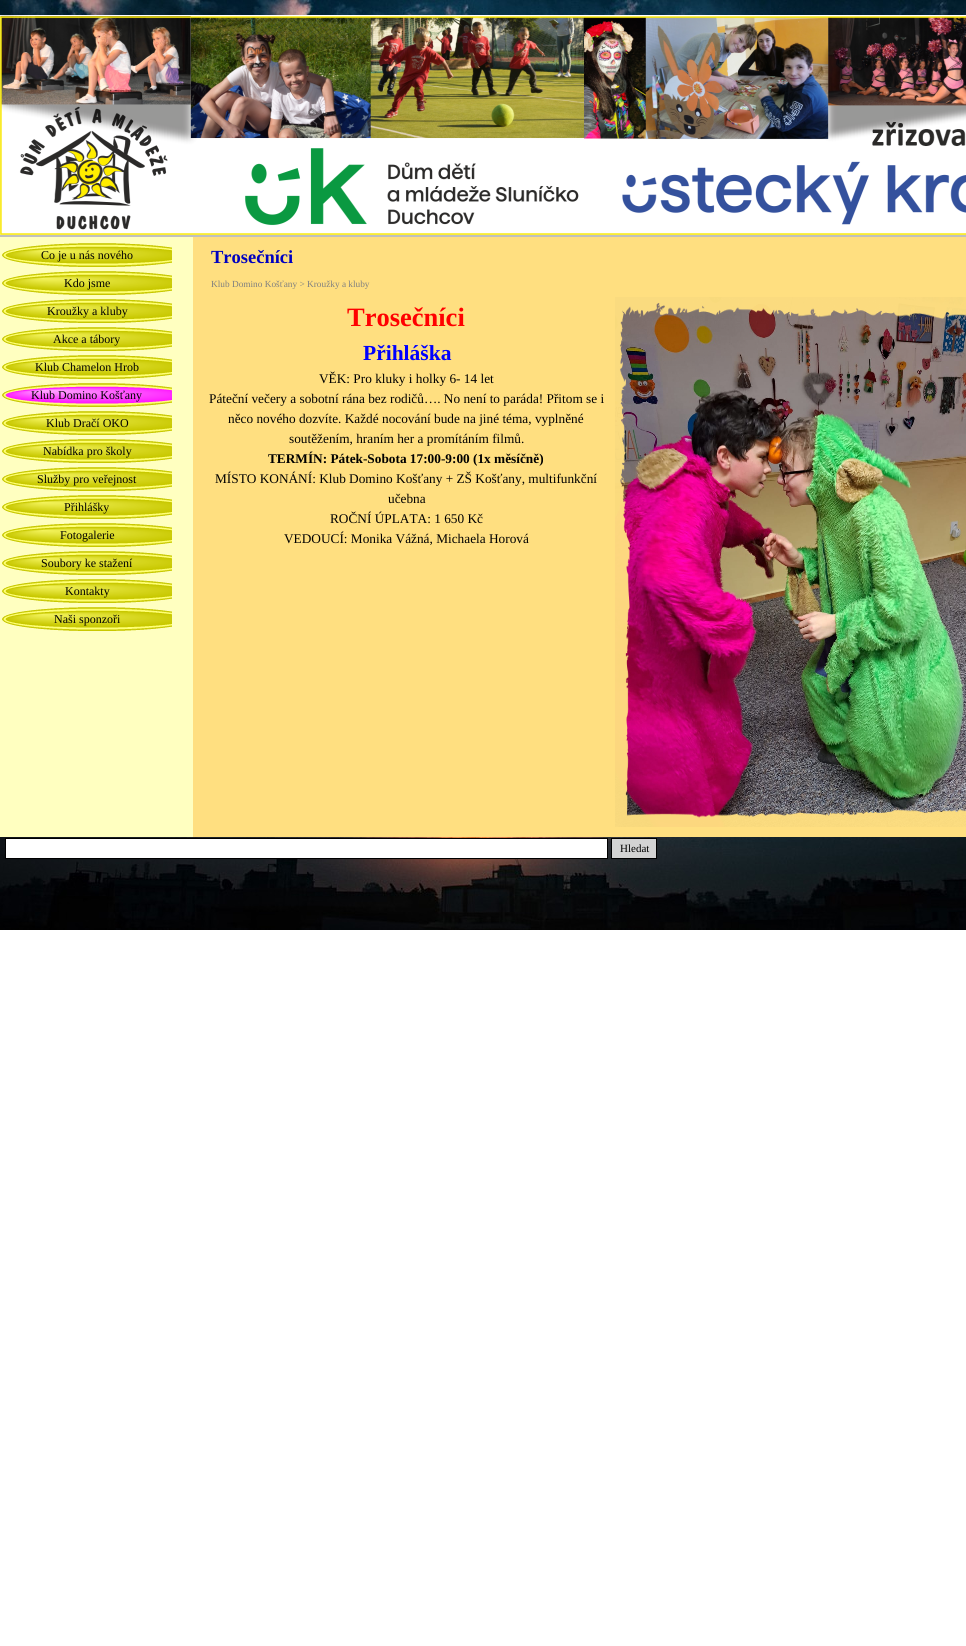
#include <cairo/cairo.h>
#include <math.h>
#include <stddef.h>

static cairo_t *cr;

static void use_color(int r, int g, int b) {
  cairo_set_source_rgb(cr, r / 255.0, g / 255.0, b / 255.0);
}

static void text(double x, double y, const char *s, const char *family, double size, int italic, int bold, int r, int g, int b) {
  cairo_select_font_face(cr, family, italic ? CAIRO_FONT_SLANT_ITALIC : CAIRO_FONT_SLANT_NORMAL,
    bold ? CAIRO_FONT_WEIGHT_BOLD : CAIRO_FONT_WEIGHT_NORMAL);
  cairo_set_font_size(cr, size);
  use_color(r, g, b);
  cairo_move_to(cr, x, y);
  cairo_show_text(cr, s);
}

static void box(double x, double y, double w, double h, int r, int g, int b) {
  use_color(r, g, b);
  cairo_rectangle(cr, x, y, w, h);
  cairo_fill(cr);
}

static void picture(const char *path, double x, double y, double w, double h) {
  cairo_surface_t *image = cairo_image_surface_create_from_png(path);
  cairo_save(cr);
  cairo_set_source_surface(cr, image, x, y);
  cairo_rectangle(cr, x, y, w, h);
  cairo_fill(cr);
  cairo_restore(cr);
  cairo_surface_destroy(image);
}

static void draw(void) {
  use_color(255, 255, 255);
  cairo_paint(cr);
  picture("img_01.png", 0, 0, 966, 930);
  box(0, 235, 966, 2, 192, 192, 192);
  picture("img_02.png", 0, 15, 966, 220);
  box(0, 237, 193, 600, 255, 255, 192);
  picture("img_03.png", 2, 243, 170, 24);
  picture("img_03.png", 2, 271, 170, 24);
  picture("img_03.png", 2, 299, 170, 24);
  picture("img_03.png", 2, 327, 170, 24);
  picture("img_03.png", 2, 355, 170, 24);
  picture("img_04.png", 2, 383, 170, 24);
  picture("img_03.png", 2, 411, 170, 24);
  picture("img_03.png", 2, 439, 170, 24);
  picture("img_03.png", 2, 467, 170, 24);
  picture("img_03.png", 2, 495, 170, 24);
  picture("img_03.png", 2, 523, 170, 24);
  picture("img_03.png", 2, 551, 170, 24);
  picture("img_03.png", 2, 579, 170, 24);
  picture("img_03.png", 2, 607, 170, 24);
  box(193, 237, 773, 600, 255, 223, 128);
  picture("img_05.png", 615, 297, 351, 530);
  use_color(255, 255, 255);
  cairo_rectangle(cr, 5.5, 838.5, 602, 20);
  cairo_fill_preserve(cr);
  use_color(0, 0, 0);
  cairo_set_line_width(cr, 1);
  cairo_stroke(cr);
  use_color(211, 211, 211);
  cairo_rectangle(cr, 611.5, 838.5, 45, 20);
  cairo_fill_preserve(cr);
  use_color(0, 0, 0);
  cairo_stroke(cr);
  text(41, 259, "Co je u nás nového", "Liberation Serif", 12, 0, 0, 0, 0, 0);
  text(64, 287, "Kdo jsme", "Liberation Serif", 12, 0, 0, 0, 0, 0);
  text(47, 315, "Kroužky a kluby", "Liberation Serif", 12, 0, 0, 0, 0, 0);
  text(53, 343, "Akce a tábory", "Liberation Serif", 12, 0, 0, 0, 0, 0);
  text(35, 371, "Klub Chamelon Hrob", "Liberation Serif", 12, 0, 0, 0, 0, 0);
  text(31, 399, "Klub Domino Košťany", "Liberation Serif", 12, 0, 0, 0, 0, 0);
  text(46, 427, "Klub Dračí OKO", "Liberation Serif", 12, 0, 0, 0, 0, 0);
  text(43, 455, "Nabídka pro školy", "Liberation Serif", 12, 0, 0, 0, 0, 0);
  text(37, 483, "Služby pro veřejnost", "Liberation Serif", 12, 0, 0, 0, 0, 0);
  text(64, 511, "Přihlášky", "Liberation Serif", 12, 0, 0, 0, 0, 0);
  text(60, 539, "Fotogalerie", "Liberation Serif", 12, 0, 0, 0, 0, 0);
  text(41, 567, "Soubory ke stažení", "Liberation Serif", 12, 0, 0, 0, 0, 0);
  text(65, 595, "Kontakty", "Liberation Serif", 12, 0, 0, 0, 0, 0);
  text(54, 623, "Naši sponzoři", "Liberation Serif", 12, 0, 0, 0, 0, 0);
  text(211, 263, "Trosečníci", "Liberation Serif", 18.5, 0, 1, 0, 0, 192);
  text(211, 287, "Klub Domino Košťany > Kroužky a kluby", "Liberation Serif", 9.3, 0, 0, 128, 128, 128);
  text(347, 326, "Trosečníci", "Liberation Serif", 26.5, 0, 1, 255, 0, 0);
  text(363, 360, "Přihláška", "Liberation Serif", 21.5, 0, 1, 0, 0, 255);
  text(319, 383, "VĚK: Pro kluky i holky 6- 14 let", "Liberation Serif", 13.3, 0, 0, 0, 0, 0);
  text(209, 403, "Páteční večery a sobotní rána bez rodičů…. No není to paráda! Přitom se i", "Liberation Serif", 13.3, 0, 0, 0, 0, 0);
  text(228, 423, "něco nového dozvíte. Každé nocování bude na jiné téma, vyplněné", "Liberation Serif", 13.3, 0, 0, 0, 0, 0);
  text(289, 443, "soutěžením, hraním her a promítáním filmů.", "Liberation Serif", 13.3, 0, 0, 0, 0, 0);
  text(268, 463, "TERMÍN: Pátek-Sobota 17:00-9:00 (1x měsíčně)", "Liberation Serif", 13.3, 0, 1, 0, 0, 0);
  text(215, 483, "MÍSTO KONÁNÍ: Klub Domino Košťany + ZŠ Košťany, multifunkční", "Liberation Serif", 13.3, 0, 0, 0, 0, 0);
  text(388, 503, "učebna", "Liberation Serif", 13.3, 0, 0, 0, 0, 0);
  text(330, 523, "ROČNÍ ÚPLATA: 1 650 Kč", "Liberation Serif", 13.3, 0, 0, 0, 0, 0);
  text(284, 543, "VEDOUCÍ: Monika Vážná, Michaela Horová", "Liberation Serif", 13.3, 0, 0, 0, 0, 0);
  text(620, 852, "Hledat", "Liberation Serif", 11, 0, 0, 0, 0, 0);
}

int main(void) {
  cairo_surface_t *surface = cairo_image_surface_create(CAIRO_FORMAT_RGB24, 966, 1646);
  cr = cairo_create(surface);
  cairo_font_options_t *options = cairo_font_options_create();
  cairo_font_options_set_hint_metrics(options, CAIRO_HINT_METRICS_OFF);
  cairo_font_options_set_hint_style(options, CAIRO_HINT_STYLE_NONE);
  cairo_set_font_options(cr, options);
  cairo_set_miter_limit(cr, 4);
  draw();
  cairo_surface_write_to_png(surface, "out.png");
  cairo_font_options_destroy(options);
  cairo_destroy(cr);
  cairo_surface_destroy(surface);
  return 0;
}
